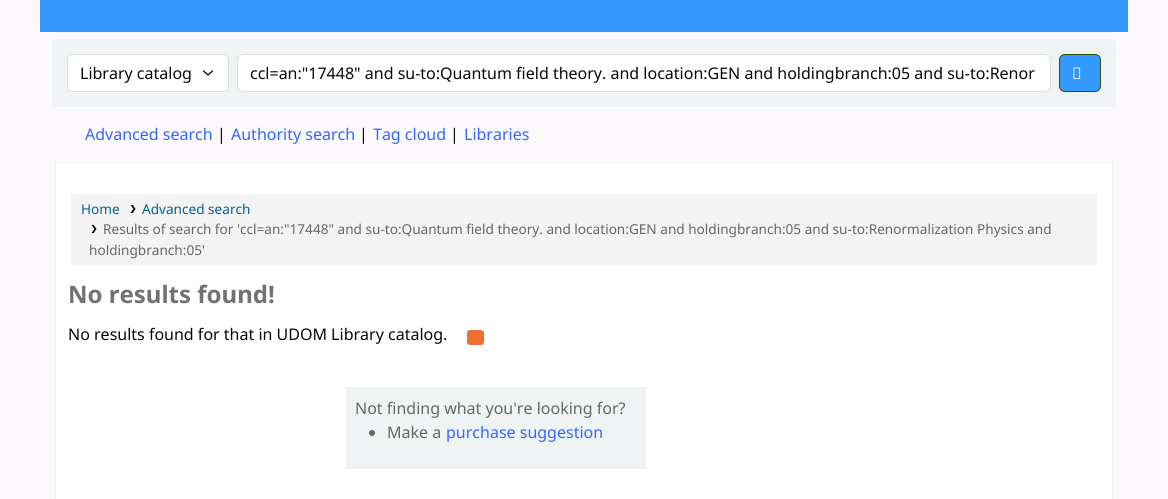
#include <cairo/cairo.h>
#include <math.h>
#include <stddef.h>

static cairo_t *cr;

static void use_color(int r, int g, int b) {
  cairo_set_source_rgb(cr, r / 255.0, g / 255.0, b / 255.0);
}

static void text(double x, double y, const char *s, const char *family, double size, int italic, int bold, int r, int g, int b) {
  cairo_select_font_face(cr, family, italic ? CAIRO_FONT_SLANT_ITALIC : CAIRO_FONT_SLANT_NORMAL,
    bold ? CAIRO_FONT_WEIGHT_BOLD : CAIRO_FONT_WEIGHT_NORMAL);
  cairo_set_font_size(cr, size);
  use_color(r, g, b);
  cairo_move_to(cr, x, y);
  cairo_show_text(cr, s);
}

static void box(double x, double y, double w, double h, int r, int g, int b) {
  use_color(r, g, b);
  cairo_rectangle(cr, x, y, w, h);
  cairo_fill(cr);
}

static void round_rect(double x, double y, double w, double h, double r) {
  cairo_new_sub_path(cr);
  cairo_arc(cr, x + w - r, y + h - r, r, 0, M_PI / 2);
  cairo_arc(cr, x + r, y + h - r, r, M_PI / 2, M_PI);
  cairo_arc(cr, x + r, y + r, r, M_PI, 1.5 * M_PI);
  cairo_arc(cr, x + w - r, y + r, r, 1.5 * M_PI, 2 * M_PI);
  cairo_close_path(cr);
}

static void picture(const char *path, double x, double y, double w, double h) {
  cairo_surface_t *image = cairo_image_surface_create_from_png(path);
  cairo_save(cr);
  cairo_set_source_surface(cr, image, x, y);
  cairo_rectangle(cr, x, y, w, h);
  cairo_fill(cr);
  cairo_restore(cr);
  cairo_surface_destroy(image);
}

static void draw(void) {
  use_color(252, 249, 252);
  cairo_paint(cr);
  box(40, 0, 1088, 32, 51, 153, 255);
  box(52, 39, 1064, 68, 240, 243, 243);
  use_color(255, 255, 255);
  round_rect(67, 54, 162, 38, 6);
  cairo_fill(cr);
  cairo_new_path(cr);
  cairo_move_to(cr, 203.5, 71);
  cairo_line_to(cr, 208, 75);
  cairo_line_to(cr, 212.5, 71);
  use_color(37, 37, 37);
  cairo_set_line_width(cr, 1.5);
  cairo_set_line_cap(cr, CAIRO_LINE_CAP_ROUND);
  cairo_set_line_join(cr, CAIRO_LINE_JOIN_ROUND);
  cairo_stroke(cr);
  round_rect(67.5, 54.5, 161, 37, 5.5);
  use_color(221, 221, 221);
  cairo_set_line_width(cr, 1);
  cairo_set_line_cap(cr, CAIRO_LINE_CAP_BUTT);
  cairo_set_line_join(cr, CAIRO_LINE_JOIN_MITER);
  cairo_stroke(cr);
  use_color(255, 255, 255);
  round_rect(237.5, 54.5, 813, 37, 5.5);
  cairo_fill_preserve(cr);
  use_color(221, 221, 221);
  cairo_stroke(cr);
  use_color(51, 153, 255);
  round_rect(1059.5, 54.5, 41, 37, 5.5);
  cairo_fill_preserve(cr);
  use_color(51, 80, 0);
  cairo_stroke(cr);
  picture("img_01.png", 1073, 67, 8, 12);
  use_color(255, 255, 255);
  cairo_rectangle(cr, 55.5, 162.5, 1057, 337);
  cairo_fill_preserve(cr);
  use_color(240, 243, 243);
  cairo_stroke(cr);
  box(71, 194, 1026, 71, 243, 243, 243);
  picture("img_02.png", 130, 205, 6, 8);
  picture("img_02.png", 91, 225, 6, 8);
  use_color(240, 109, 52);
  round_rect(467, 330, 17, 15, 3);
  cairo_fill(cr);
  box(346, 387, 300, 82, 240, 243, 243);
  use_color(102, 102, 102);
  cairo_arc(cr, 372, 433, 3, 0, 2 * M_PI);
  cairo_fill(cr);
  text(80, 79, "Library catalog", "Noto Sans", 16, 0, 0, 7, 7, 7);
  text(250, 79, "ccl=an:\"17448\" and su-to:Quantum field theory. and location:GEN and holdingbranch:05 and su-to:Renor", "Noto Sans", 16, 0, 0, 7, 7, 7);
  text(85, 140, "Advanced search", "Noto Sans", 16, 0, 0, 51, 102, 255);
  text(217, 140, "|", "Noto Sans", 16, 0, 0, 7, 7, 7);
  text(231, 140, "Authority search", "Noto Sans", 16, 0, 0, 51, 102, 255);
  text(359, 140, "|", "Noto Sans", 16, 0, 0, 7, 7, 7);
  text(373, 140, "Tag cloud", "Noto Sans", 16, 0, 0, 51, 102, 255);
  text(450, 140, "|", "Noto Sans", 16, 0, 0, 7, 7, 7);
  text(464, 140, "Libraries", "Noto Sans", 16, 0, 0, 51, 102, 255);
  text(81, 214, "Home", "Noto Sans", 13.6, 0, 0, 0, 99, 148);
  text(142, 214, "Advanced search", "Noto Sans", 13.6, 0, 0, 0, 99, 148);
  text(103, 234, "Results of search for 'ccl=an:\"17448\" and su-to:Quantum field theory. and location:GEN and holdingbranch:05 and su-to:Renormalization Physics and", "Noto Sans", 13.6, 0, 0, 102, 102, 102);
  text(89, 255, "holdingbranch:05'", "Noto Sans", 13.6, 0, 0, 102, 102, 102);
  text(68, 303, "No results found!", "Noto Sans", 24, 0, 1, 114, 114, 114);
  text(68, 340, "No results found for that in UDOM Library catalog.", "Noto Sans", 16, 0, 0, 7, 7, 7);
  text(355, 414, "Not finding what you're looking for?", "Noto Sans", 16, 0, 0, 102, 102, 102);
  text(387, 438, "Make a", "Noto Sans", 16, 0, 0, 102, 102, 102);
  text(446, 438, "purchase suggestion", "Noto Sans", 16, 0, 0, 51, 102, 255);
}

int main(void) {
  cairo_surface_t *surface = cairo_image_surface_create(CAIRO_FORMAT_RGB24, 1168, 499);
  cr = cairo_create(surface);
  cairo_font_options_t *options = cairo_font_options_create();
  cairo_font_options_set_hint_metrics(options, CAIRO_HINT_METRICS_OFF);
  cairo_font_options_set_hint_style(options, CAIRO_HINT_STYLE_NONE);
  cairo_set_font_options(cr, options);
  cairo_set_miter_limit(cr, 4);
  draw();
  cairo_surface_write_to_png(surface, "out.png");
  cairo_font_options_destroy(options);
  cairo_destroy(cr);
  cairo_surface_destroy(surface);
  return 0;
}
